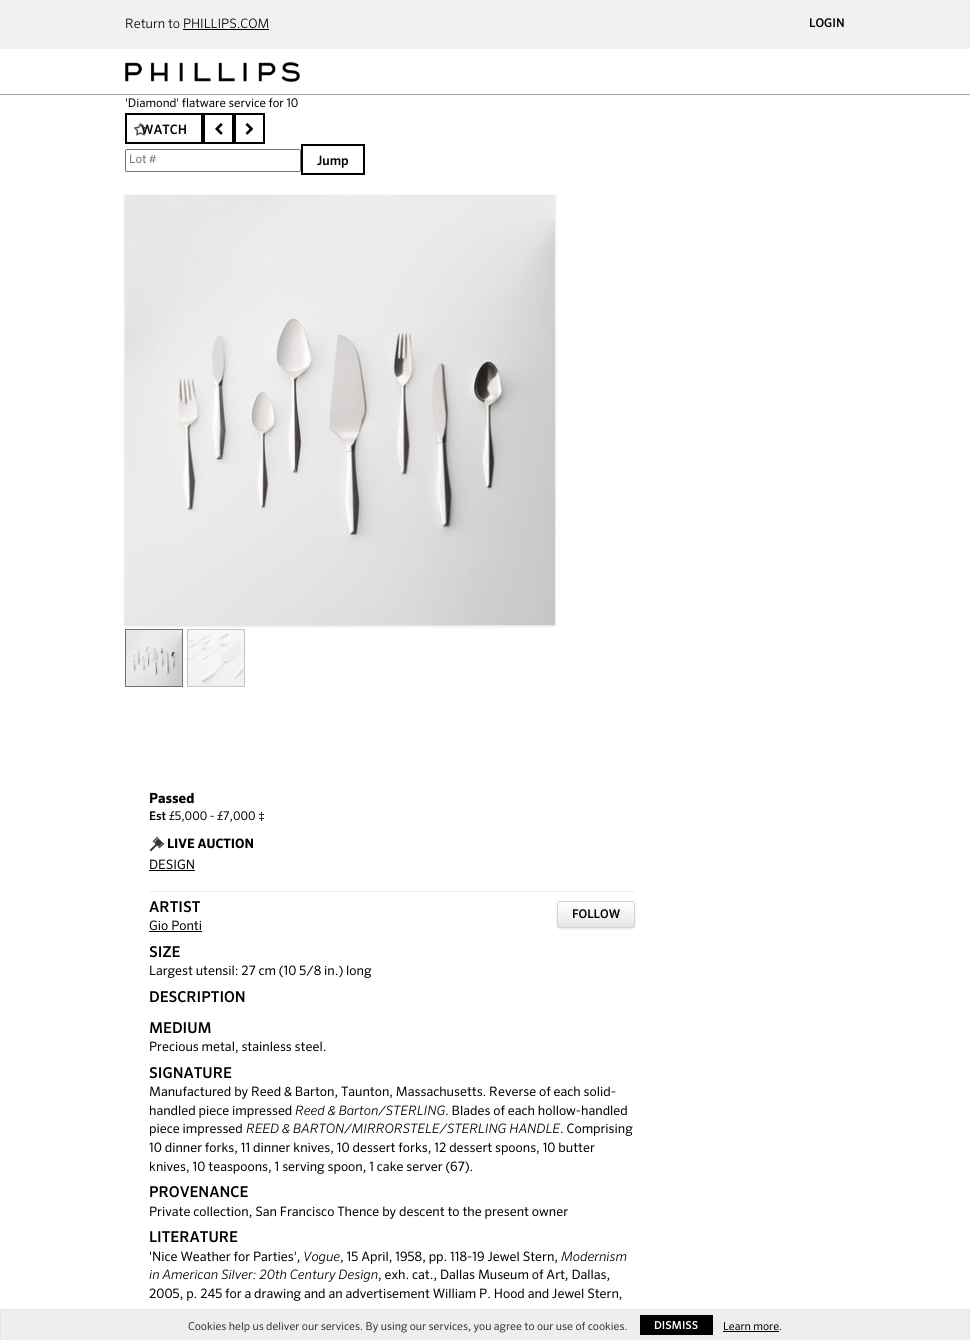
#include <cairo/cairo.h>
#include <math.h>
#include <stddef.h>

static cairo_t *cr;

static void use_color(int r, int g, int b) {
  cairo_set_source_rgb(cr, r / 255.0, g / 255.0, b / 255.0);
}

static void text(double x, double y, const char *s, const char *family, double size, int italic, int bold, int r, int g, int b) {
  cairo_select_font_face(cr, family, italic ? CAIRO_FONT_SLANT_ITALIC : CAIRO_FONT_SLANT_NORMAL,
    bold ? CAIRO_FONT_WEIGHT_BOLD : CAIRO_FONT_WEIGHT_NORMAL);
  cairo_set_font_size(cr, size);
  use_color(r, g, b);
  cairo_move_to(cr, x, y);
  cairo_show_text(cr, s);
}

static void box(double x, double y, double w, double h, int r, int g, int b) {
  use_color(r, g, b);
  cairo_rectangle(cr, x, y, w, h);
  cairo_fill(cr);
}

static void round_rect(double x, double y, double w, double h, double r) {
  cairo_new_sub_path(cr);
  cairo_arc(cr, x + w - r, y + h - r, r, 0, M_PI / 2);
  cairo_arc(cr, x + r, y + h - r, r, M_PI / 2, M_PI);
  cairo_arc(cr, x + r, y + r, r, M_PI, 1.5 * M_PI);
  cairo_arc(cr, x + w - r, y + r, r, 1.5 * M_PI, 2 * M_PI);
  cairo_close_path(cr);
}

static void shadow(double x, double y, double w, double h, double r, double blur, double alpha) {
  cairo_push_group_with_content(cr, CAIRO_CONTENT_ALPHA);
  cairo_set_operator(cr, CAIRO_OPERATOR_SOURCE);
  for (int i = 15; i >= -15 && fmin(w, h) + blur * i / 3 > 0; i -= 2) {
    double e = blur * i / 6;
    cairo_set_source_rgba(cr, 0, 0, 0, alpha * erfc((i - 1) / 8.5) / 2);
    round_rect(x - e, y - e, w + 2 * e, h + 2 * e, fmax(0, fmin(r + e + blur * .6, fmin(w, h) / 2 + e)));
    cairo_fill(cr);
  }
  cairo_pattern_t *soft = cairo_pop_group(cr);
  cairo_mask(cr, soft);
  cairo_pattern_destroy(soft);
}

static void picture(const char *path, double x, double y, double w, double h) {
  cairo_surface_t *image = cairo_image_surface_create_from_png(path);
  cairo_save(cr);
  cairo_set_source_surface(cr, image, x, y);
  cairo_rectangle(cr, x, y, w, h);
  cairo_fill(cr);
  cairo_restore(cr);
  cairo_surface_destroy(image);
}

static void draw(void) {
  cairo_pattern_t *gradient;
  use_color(255, 255, 255);
  cairo_paint(cr);
  box(0, 94, 970, 1, 163, 163, 163);
  box(0, 0, 970, 49, 241, 241, 241);
  box(183, 29, 86, 1, 0, 0, 0);
  picture("img_01.png", 125, 62, 175, 20);
  cairo_rectangle(cr, 126, 114, 76, 29);
  cairo_stroke(cr);
  cairo_rectangle(cr, 204, 114, 29, 29);
  cairo_stroke(cr);
  picture("img_03.png", 215, 123, 8, 12);
  cairo_rectangle(cr, 235, 114, 29, 29);
  cairo_stroke(cr);
  picture("img_04.png", 245, 123, 9, 12);
  round_rect(125.5, 149.5, 175, 22, 1.5);
  use_color(118, 118, 118);
  cairo_set_line_width(cr, 1);
  cairo_stroke(cr);
  cairo_rectangle(cr, 302, 145, 62, 29);
  use_color(0, 0, 0);
  cairo_set_line_width(cr, 2);
  cairo_stroke(cr);
  use_color(218, 217, 215);
  shadow(125, 196, 430, 430, 0, 1.5, 1);
  picture("img_05.png", 125, 195, 430, 430);
  cairo_rectangle(cr, 125.5, 629.5, 57, 57);
  use_color(113, 113, 113);
  cairo_set_line_width(cr, 1);
  cairo_stroke(cr);
  cairo_rectangle(cr, 187.5, 629.5, 57, 57);
  use_color(198, 198, 198);
  cairo_stroke(cr);
  picture("img_06.png", 126, 630, 56, 56);
  picture("img_07.png", 188, 630, 56, 56);
  picture("img_08.png", 149, 836, 16, 16);
  box(149, 870, 46, 1, 0, 0, 0);
  box(149, 891, 486, 1, 238, 238, 238);
  use_color(0, 0, 0);
  shadow(558, 903, 76, 25, 2, 1.5, 0.2);
  cairo_save(cr);
  round_rect(557, 901, 78, 27, 3);
  cairo_clip(cr);
  gradient = cairo_pattern_create_linear(596, 902, 596, 927);
  cairo_pattern_add_color_stop_rgba(gradient, 0, 1, 1, 1, 1);
  cairo_pattern_add_color_stop_rgba(gradient, 1, 0.902, 0.902, 0.902, 1);
  cairo_set_source(cr, gradient);
  cairo_pattern_destroy(gradient);
  cairo_rectangle(cr, 557, 902, 78, 25);
  cairo_fill(cr);
  cairo_restore(cr);
  round_rect(557.5, 901.5, 77, 26, 2.5);
  use_color(212, 212, 212);
  cairo_stroke(cr);
  box(149, 931, 53, 1, 0, 0, 0);
  box(1, 1310, 968, 30, 238, 238, 238);
  box(0, 1309, 970, 1, 228, 228, 228);
  box(969, 1309, 1, 31, 228, 228, 228);
  box(0, 1309, 1, 31, 228, 228, 228);
  box(640, 1315, 73, 20, 0, 0, 0);
  box(723, 1331, 56, 1, 0, 0, 0);
  text(125, 28, "Return to PHILLIPS.COM", "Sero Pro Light", 13, 0, 0, 0, 0, 0);
  text(809, 27, "LOGIN", "Sero Pro Medium", 12, 0, 0, 0, 0, 0);
  text(125, 107, "'Diamond' flatware service for 10", "Sero Pro", 12, 0, 0, 0, 0, 0);
  text(141, 134, "WATCH", "Sero Pro Medium", 13, 0, 0, 0, 0, 0);
  picture("img_02.png", 133, 122, 15, 14);
  text(129, 163, "Lot #", "Sero Pro", 12, 0, 0, 117, 117, 117);
  text(317, 165, "Jump", "Sero Pro Medium", 13, 0, 0, 0, 0, 0);
  text(149, 803, "Passed", "Sero Pro", 14, 0, 1, 0, 0, 0);
  text(149, 820, "Est", "Sero Pro Medium", 12, 0, 0, 0, 0, 0);
  text(169, 820, "£5,000 - £7,000 ‡", "Sero Pro", 12, 0, 0, 0, 0, 0);
  text(167, 848, "LIVE AUCTION", "Sero Pro", 13, 0, 1, 0, 0, 0);
  text(149, 869, "DESIGN", "Sero Pro", 13, 0, 0, 0, 0, 0);
  text(149, 912, "ARTIST", "Sero Pro Medium", 15, 0, 0, 0, 0, 0);
  text(572, 918, "FOLLOW", "Sero Pro Medium", 12, 0, 0, 0, 0, 0);
  text(149, 930, "Gio Ponti", "Sero Pro", 13, 0, 0, 0, 0, 0);
  text(149, 957, "SIZE", "Sero Pro Medium", 15, 0, 0, 0, 0, 0);
  text(149, 975, "Largest utensil: 27 cm (10 5/8 in.) long", "Sero Pro", 13, 0, 0, 0, 0, 0);
  text(149, 1002, "DESCRIPTION", "Sero Pro Medium", 15, 0, 0, 0, 0, 0);
  text(149, 1033, "MEDIUM", "Sero Pro Medium", 15, 0, 0, 0, 0, 0);
  text(149, 1051, "Precious metal, stainless steel.", "Sero Pro", 13, 0, 0, 0, 0, 0);
  text(149, 1078, "SIGNATURE", "Sero Pro Medium", 15, 0, 0, 0, 0, 0);
  text(149, 1096, "Manufactured by Reed & Barton, Taunton, Massachusetts. Reverse of each solid-", "Sero Pro", 13, 0, 0, 0, 0, 0);
  text(149, 1115, "handled piece impressed", "Sero Pro", 13, 0, 0, 0, 0, 0);
  text(295, 1115, "Reed & Barton/STERLING", "Sero Pro Light", 13, 1, 0, 0, 0, 0);
  text(445, 1115, ". Blades of each hollow-handled", "Sero Pro", 13, 0, 0, 0, 0, 0);
  text(149, 1133, "piece impressed", "Sero Pro", 13, 0, 0, 0, 0, 0);
  text(246, 1133, "REED & BARTON/MIRRORSTELE/STERLING HANDLE", "Sero Pro Light", 13, 1, 0, 0, 0, 0);
  text(560, 1133, ". Comprising", "Sero Pro", 13, 0, 0, 0, 0, 0);
  text(149, 1152, "10 dinner forks, 11 dinner knives, 10 dessert forks, 12 dessert spoons, 10 butter", "Sero Pro", 13, 0, 0, 0, 0, 0);
  text(149, 1171, "knives, 10 teaspoons, 1 serving spoon, 1 cake server (67).", "Sero Pro", 13, 0, 0, 0, 0, 0);
  text(149, 1197, "PROVENANCE", "Sero Pro Medium", 15, 0, 0, 0, 0, 0);
  text(149, 1216, "Private collection, San Francisco Thence by descent to the present owner", "Sero Pro", 13, 0, 0, 0, 0, 0);
  text(149, 1242, "LITERATURE", "Sero Pro Medium", 15, 0, 0, 0, 0, 0);
  text(149, 1261, "'Nice Weather for Parties',", "Sero Pro", 13, 0, 0, 0, 0, 0);
  text(303, 1261, "Vogue", "Sero Pro Light", 13, 1, 0, 0, 0, 0);
  text(340, 1261, ", 15 April, 1958, pp. 118-19 Jewel Stern,", "Sero Pro", 13, 0, 0, 0, 0, 0);
  text(561, 1261, "Modernism", "Sero Pro Light", 13, 1, 0, 0, 0, 0);
  text(149, 1279, "in American Silver: 20th Century Design", "Sero Pro Light", 13, 1, 0, 0, 0, 0);
  text(378, 1279, ", exh. cat., Dallas Museum of Art, Dallas,", "Sero Pro", 13, 0, 0, 0, 0, 0);
  text(149, 1298, "2005, p. 245 for a drawing and an advertisement William P. Hood and Jewel Stern,", "Sero Pro", 13, 0, 0, 0, 0, 0);
  text(188, 1330, "Cookies help us deliver our services. By using our services, you agree to our use of cookies.", "Sero Pro", 11, 0, 0, 51, 51, 51);
  text(654, 1329, "DISMISS", "Sero Pro Medium", 11, 0, 0, 255, 255, 255);
  text(723, 1330, "Learn more", "Sero Pro", 11, 0, 0, 0, 0, 0);
  text(779, 1330, ".", "Sero Pro", 11, 0, 0, 51, 51, 51);
}

int main(void) {
  cairo_surface_t *surface = cairo_image_surface_create(CAIRO_FORMAT_RGB24, 970, 1340);
  cr = cairo_create(surface);
  cairo_font_options_t *options = cairo_font_options_create();
  cairo_font_options_set_hint_metrics(options, CAIRO_HINT_METRICS_OFF);
  cairo_font_options_set_hint_style(options, CAIRO_HINT_STYLE_NONE);
  cairo_set_font_options(cr, options);
  cairo_set_miter_limit(cr, 4);
  draw();
  cairo_surface_write_to_png(surface, "out.png");
  cairo_font_options_destroy(options);
  cairo_destroy(cr);
  cairo_surface_destroy(surface);
  return 0;
}
